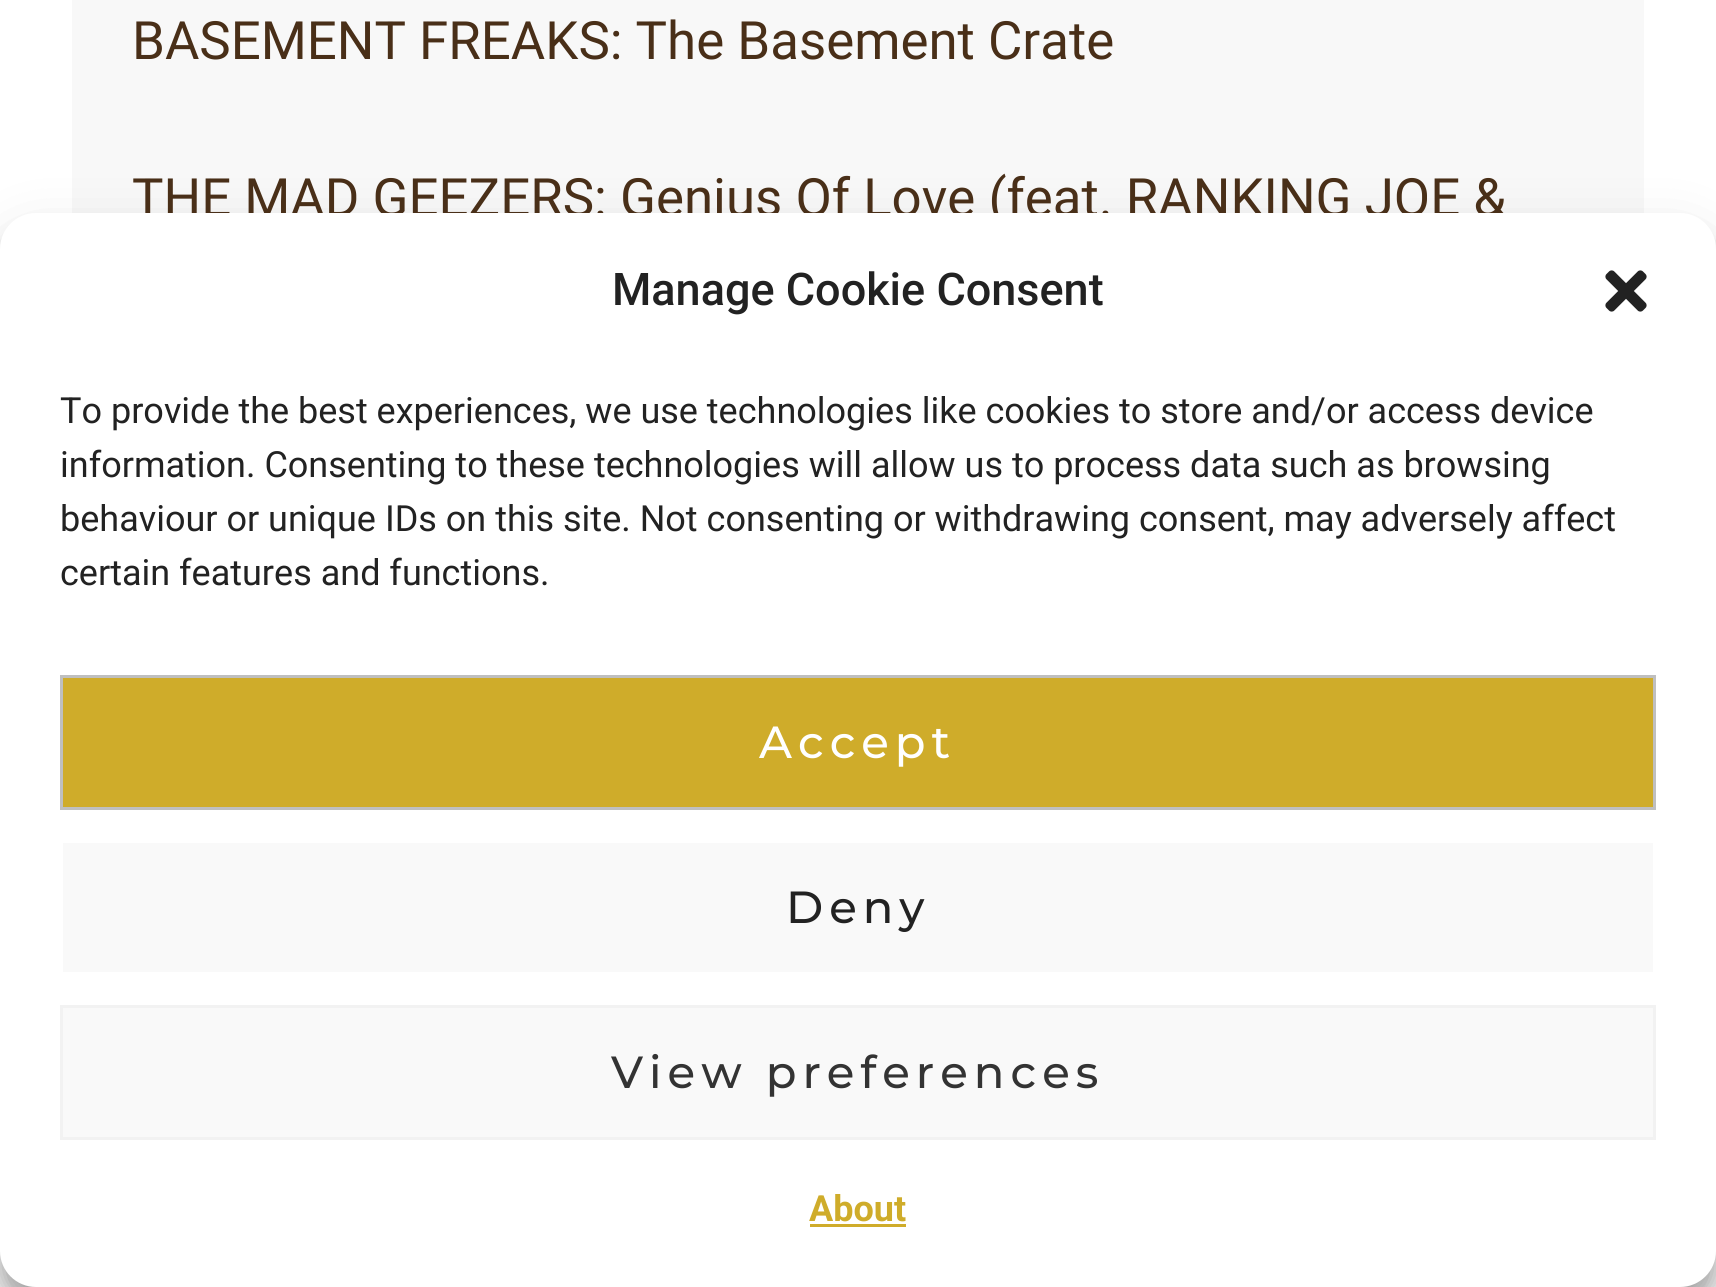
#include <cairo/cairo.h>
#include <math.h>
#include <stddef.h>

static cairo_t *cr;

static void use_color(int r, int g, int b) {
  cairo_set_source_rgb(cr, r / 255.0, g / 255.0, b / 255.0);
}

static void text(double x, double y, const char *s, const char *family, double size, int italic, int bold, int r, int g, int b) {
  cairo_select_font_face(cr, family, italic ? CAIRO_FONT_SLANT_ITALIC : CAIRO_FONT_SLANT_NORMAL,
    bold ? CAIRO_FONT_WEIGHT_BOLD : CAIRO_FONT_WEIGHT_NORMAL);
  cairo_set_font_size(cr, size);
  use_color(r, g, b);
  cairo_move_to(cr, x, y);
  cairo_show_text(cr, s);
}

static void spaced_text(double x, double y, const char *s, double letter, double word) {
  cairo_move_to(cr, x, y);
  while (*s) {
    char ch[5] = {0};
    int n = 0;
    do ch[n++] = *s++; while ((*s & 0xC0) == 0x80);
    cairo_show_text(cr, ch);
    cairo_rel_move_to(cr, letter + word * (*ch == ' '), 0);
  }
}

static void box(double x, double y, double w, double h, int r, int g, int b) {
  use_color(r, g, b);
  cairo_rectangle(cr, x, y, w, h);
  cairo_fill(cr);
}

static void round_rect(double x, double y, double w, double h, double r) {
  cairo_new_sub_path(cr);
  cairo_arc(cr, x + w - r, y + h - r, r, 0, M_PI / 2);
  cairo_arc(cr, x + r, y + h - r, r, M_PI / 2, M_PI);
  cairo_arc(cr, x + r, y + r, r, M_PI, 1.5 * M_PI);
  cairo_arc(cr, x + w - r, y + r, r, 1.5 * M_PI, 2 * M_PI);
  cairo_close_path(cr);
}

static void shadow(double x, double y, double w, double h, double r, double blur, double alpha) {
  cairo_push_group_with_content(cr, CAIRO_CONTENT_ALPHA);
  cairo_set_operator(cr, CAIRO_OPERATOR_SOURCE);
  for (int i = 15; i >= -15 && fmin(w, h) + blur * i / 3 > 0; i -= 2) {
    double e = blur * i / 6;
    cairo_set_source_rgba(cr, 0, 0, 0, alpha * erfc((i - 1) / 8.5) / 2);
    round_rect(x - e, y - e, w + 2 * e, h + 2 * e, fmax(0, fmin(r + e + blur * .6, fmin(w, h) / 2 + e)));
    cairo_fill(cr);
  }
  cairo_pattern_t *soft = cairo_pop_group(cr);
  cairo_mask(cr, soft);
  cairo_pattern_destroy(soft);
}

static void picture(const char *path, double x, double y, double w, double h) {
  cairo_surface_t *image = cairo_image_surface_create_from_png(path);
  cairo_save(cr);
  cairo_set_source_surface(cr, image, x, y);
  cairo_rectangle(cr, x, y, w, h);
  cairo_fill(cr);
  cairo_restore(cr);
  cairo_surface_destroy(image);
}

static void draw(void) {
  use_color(255, 255, 255);
  cairo_paint(cr);
  box(72, 0, 1572, 213, 248, 248, 248);
  use_color(0, 0, 0);
  shadow(0, 231, 1716, 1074, 36, 9, 0.23);
  shadow(0, 243, 1716, 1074, 36, 30, 0.19);
  text(132, 59, "BASEMENT FREAKS: The Basement Crate", "Roboto", 52.8, 0, 0, 73, 47, 24);
  text(132, 216, "THE MAD GEEZERS: Genius Of Love (feat. RANKING JOE &", "Roboto", 52.8, 0, 0, 73, 47, 24);
  use_color(255, 255, 255);
  round_rect(0, 213, 1716, 1074, 36);
  cairo_fill(cr);
  text(612, 305, "Manage Cookie Consent", "Roboto Medium", 45, 0, 0, 34, 34, 34);
  picture("img_01.png", 1605, 270, 42, 42);
  text(60, 423, "To provide the best experiences, we use technologies like cookies to store and/or access device", "Roboto", 36, 0, 0, 34, 34, 34);
  text(60, 477, "information. Consenting to these technologies will allow us to process data such as browsing", "Roboto", 36, 0, 0, 34, 34, 34);
  text(60, 531, "behaviour or unique IDs on this site. Not consenting or withdrawing consent, may adversely affect", "Roboto", 36, 0, 0, 34, 34, 34);
  text(60, 585, "certain features and functions.", "Roboto", 36, 0, 0, 34, 34, 34);
  use_color(207, 172, 42);
  cairo_rectangle(cr, 61.5, 676.5, 1593, 132);
  cairo_fill_preserve(cr);
  use_color(191, 191, 191);
  cairo_set_line_width(cr, 3);
  cairo_stroke(cr);
  cairo_select_font_face(cr, "Montserrat Medium", CAIRO_FONT_SLANT_NORMAL, CAIRO_FONT_WEIGHT_NORMAL);
  cairo_set_font_size(cr, 45);
  use_color(255, 255, 255);
  spaced_text(759, 758, "Accept", 6, 0);
  box(63, 843, 1590, 129, 249, 249, 249);
  use_color(34, 34, 34);
  spaced_text(786, 923, "Deny", 6, 0);
  use_color(249, 249, 249);
  cairo_rectangle(cr, 61.5, 1006.5, 1593, 132);
  cairo_fill_preserve(cr);
  use_color(242, 242, 242);
  cairo_stroke(cr);
  use_color(51, 51, 51);
  spaced_text(611, 1088, "View preferences", 6, 0);
  text(809, 1221, "About", "Roboto", 36, 0, 1, 207, 172, 42);
  box(810, 1224, 96, 3, 207, 172, 42);
}

int main(void) {
  cairo_surface_t *surface = cairo_image_surface_create(CAIRO_FORMAT_RGB24, 1716, 1287);
  cr = cairo_create(surface);
  cairo_font_options_t *options = cairo_font_options_create();
  cairo_font_options_set_hint_metrics(options, CAIRO_HINT_METRICS_OFF);
  cairo_font_options_set_hint_style(options, CAIRO_HINT_STYLE_NONE);
  cairo_set_font_options(cr, options);
  cairo_set_miter_limit(cr, 4);
  draw();
  cairo_surface_write_to_png(surface, "out.png");
  cairo_font_options_destroy(options);
  cairo_destroy(cr);
  cairo_surface_destroy(surface);
  return 0;
}
